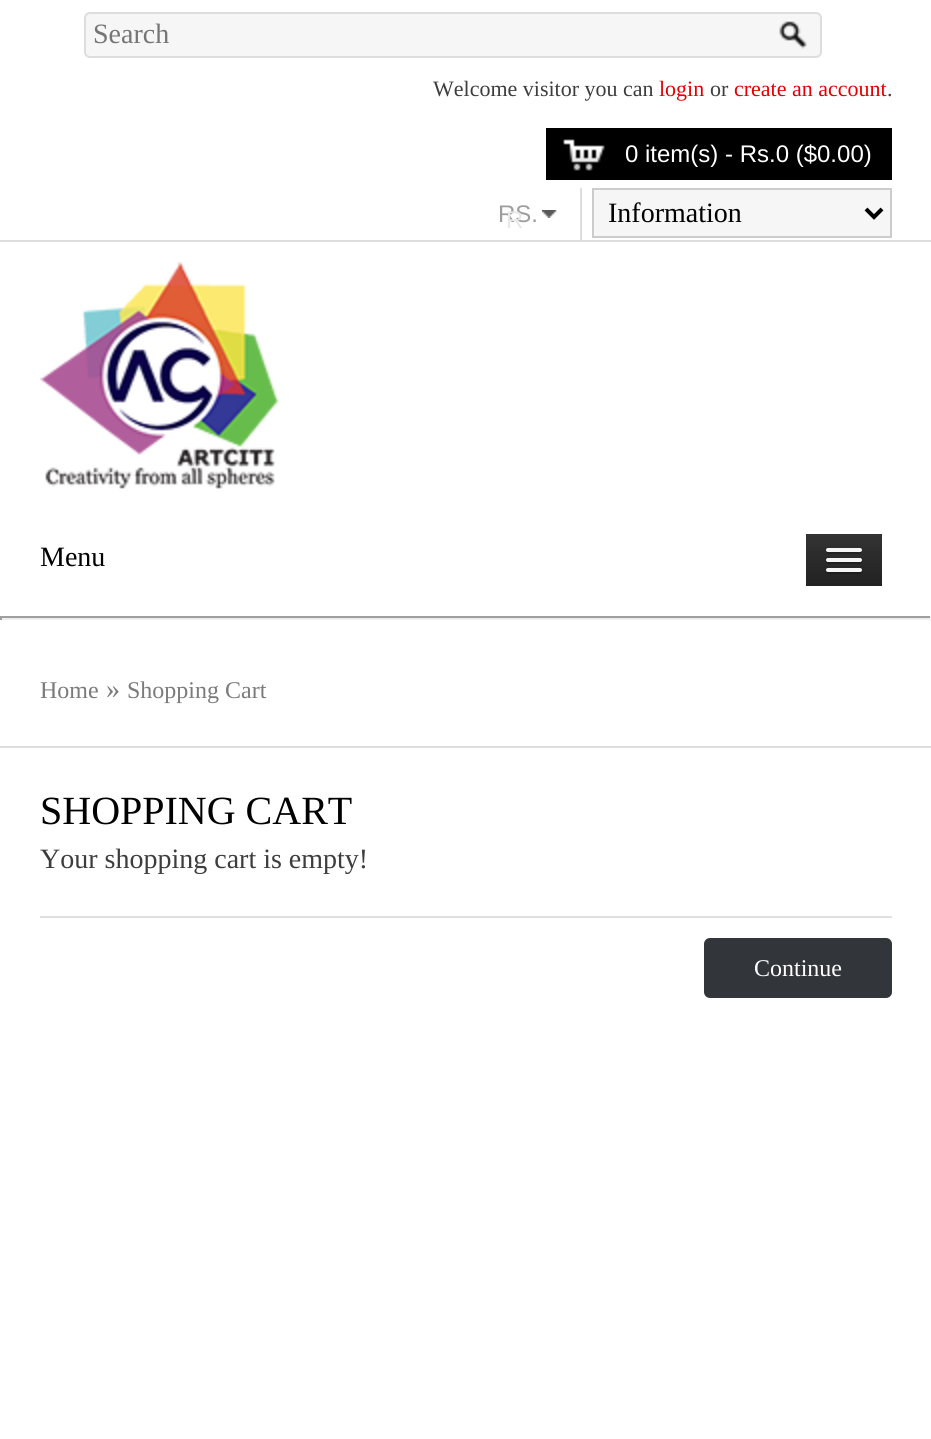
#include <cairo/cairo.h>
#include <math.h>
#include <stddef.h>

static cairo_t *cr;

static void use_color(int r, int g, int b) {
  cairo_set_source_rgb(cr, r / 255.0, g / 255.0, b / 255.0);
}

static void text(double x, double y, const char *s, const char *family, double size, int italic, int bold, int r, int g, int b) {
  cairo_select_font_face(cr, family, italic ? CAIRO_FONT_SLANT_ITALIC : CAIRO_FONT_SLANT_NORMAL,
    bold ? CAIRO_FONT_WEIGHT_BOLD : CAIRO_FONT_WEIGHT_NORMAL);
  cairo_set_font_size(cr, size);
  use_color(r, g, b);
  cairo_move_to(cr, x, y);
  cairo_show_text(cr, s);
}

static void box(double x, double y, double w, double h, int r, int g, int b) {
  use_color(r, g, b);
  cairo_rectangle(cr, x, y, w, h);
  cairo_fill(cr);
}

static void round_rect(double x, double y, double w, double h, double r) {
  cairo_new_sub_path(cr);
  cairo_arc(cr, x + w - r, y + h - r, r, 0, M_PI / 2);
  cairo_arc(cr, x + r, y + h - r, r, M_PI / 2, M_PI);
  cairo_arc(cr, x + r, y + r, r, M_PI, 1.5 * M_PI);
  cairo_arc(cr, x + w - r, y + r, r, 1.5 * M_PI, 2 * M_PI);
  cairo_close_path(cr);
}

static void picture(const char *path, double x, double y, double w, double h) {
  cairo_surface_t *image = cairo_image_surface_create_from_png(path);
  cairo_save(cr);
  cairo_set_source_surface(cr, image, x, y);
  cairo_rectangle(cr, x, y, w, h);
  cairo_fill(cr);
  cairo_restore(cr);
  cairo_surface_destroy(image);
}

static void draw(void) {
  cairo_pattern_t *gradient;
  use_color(255, 255, 255);
  cairo_paint(cr);
  box(0, 240, 931, 2, 221, 221, 221);
  use_color(246, 246, 246);
  round_rect(85, 13, 736, 44, 5);
  cairo_fill_preserve(cr);
  use_color(221, 221, 221);
  cairo_stroke(cr);
  picture("img_01.png", 779, 21, 28, 28);
  box(546, 128, 346, 52, 0, 0, 0);
  picture("img_02.png", 562, 139, 43, 32);
  box(580, 188, 2, 52, 221, 221, 221);
  picture("img_03.png", 542, 210, 15, 8);
  use_color(246, 246, 246);
  cairo_rectangle(cr, 593, 189, 298, 48);
  cairo_fill_preserve(cr);
  use_color(204, 204, 204);
  cairo_stroke(cr);
  cairo_new_path(cr);
  cairo_move_to(cr, 866, 209);
  cairo_line_to(cr, 874, 217);
  cairo_line_to(cr, 882, 209);
  use_color(0, 0, 0);
  cairo_set_line_width(cr, 4);
  cairo_stroke(cr);
  picture("img_04.png", 40, 262, 239, 227);
  gradient = cairo_pattern_create_linear(844, 534, 844, 586);
  cairo_pattern_add_color_stop_rgba(gradient, 0, 0.2, 0.2, 0.2, 1);
  cairo_pattern_add_color_stop_rgba(gradient, 1, 0.133, 0.133, 0.133, 1);
  cairo_set_source(cr, gradient);
  cairo_pattern_destroy(gradient);
  cairo_rectangle(cr, 806, 534, 76, 52);
  cairo_fill(cr);
  use_color(34, 34, 34);
  cairo_new_path(cr);
  cairo_move_to(cr, 826.5, 551);
  cairo_curve_to(cr, 824, 555, 833, 554, 833.5, 554);
  cairo_line_to(cr, 854.5, 554);
  cairo_curve_to(cr, 855, 554, 864, 555, 861.5, 551);
  cairo_curve_to(cr, 861.5, 551.5, 860.5, 552, 860, 552);
  cairo_line_to(cr, 828, 552);
  cairo_curve_to(cr, 827.5, 552, 826.5, 551.5, 826.5, 551);
  cairo_close_path(cr);
  cairo_fill(cr);
  use_color(245, 245, 245);
  round_rect(826, 548, 36, 4, 2);
  cairo_fill(cr);
  use_color(31, 31, 31);
  cairo_new_path(cr);
  cairo_move_to(cr, 826.5, 561);
  cairo_curve_to(cr, 824, 565, 833, 564, 833.5, 564);
  cairo_line_to(cr, 854.5, 564);
  cairo_curve_to(cr, 855, 564, 864, 565, 861.5, 561);
  cairo_curve_to(cr, 861.5, 561.5, 860.5, 562, 860, 562);
  cairo_line_to(cr, 828, 562);
  cairo_curve_to(cr, 827.5, 562, 826.5, 561.5, 826.5, 561);
  cairo_close_path(cr);
  cairo_fill(cr);
  use_color(245, 245, 245);
  round_rect(826, 558, 36, 4, 2);
  cairo_fill(cr);
  use_color(29, 29, 29);
  cairo_new_path(cr);
  cairo_move_to(cr, 826.5, 571);
  cairo_curve_to(cr, 824, 575, 833, 574, 833.5, 574);
  cairo_line_to(cr, 854.5, 574);
  cairo_curve_to(cr, 855, 574, 864, 575, 861.5, 571);
  cairo_curve_to(cr, 861.5, 571.5, 860.5, 572, 860, 572);
  cairo_line_to(cr, 828, 572);
  cairo_curve_to(cr, 827.5, 572, 826.5, 571.5, 826.5, 571);
  cairo_close_path(cr);
  cairo_fill(cr);
  use_color(245, 245, 245);
  round_rect(826, 568, 36, 4, 2);
  cairo_fill(cr);
  box(0, 616, 931, 2, 159, 159, 159);
  box(930, 616, 1, 4, 238, 238, 238);
  box(0, 618, 931, 2, 238, 238, 238);
  box(0, 616, 2, 4, 159, 159, 159);
  box(0, 746, 931, 2, 221, 221, 221);
  box(40, 916, 852, 2, 224, 224, 224);
  use_color(50, 53, 58);
  round_rect(704, 938, 188, 60, 6);
  cairo_fill(cr);
  text(93, 43, "Search", "Liberation Serif", 28, 0, 0, 117, 117, 117);
  text(433, 96, "Welcome visitor you can", "Liberation Serif", 22, 0, 0, 61, 61, 61);
  text(659, 96, "login", "Liberation Serif", 22, 0, 0, 227, 0, 0);
  text(710, 96, "or", "Liberation Serif", 22, 0, 0, 61, 61, 61);
  text(734, 96, "create an account", "Liberation Serif", 22, 0, 0, 227, 0, 0);
  text(887, 96, ".", "Liberation Serif", 22, 0, 0, 61, 61, 61);
  text(625, 162, "0 item(s) - Rs.0 ($0.00)", "Liberation Sans", 24, 0, 0, 255, 255, 255);
  text(498, 222, "RS.", "Liberation Sans", 24, 0, 0, 157, 157, 157);
  text(506, 228, "R", "Liberation Sans", 24, 0, 0, 231, 231, 231);
  text(608, 222, "Information", "Liberation Serif", 28, 0, 0, 0, 0, 0);
  text(40, 566, "Menu", "Liberation Serif", 28, 0, 0, 0, 0, 0);
  text(40, 698, "Home", "Liberation Serif", 24, 0, 0, 123, 123, 123);
  text(106, 698, "»", "Liberation Serif", 28, 0, 0, 123, 123, 123);
  text(127, 698, "Shopping Cart", "Liberation Serif", 24, 0, 0, 123, 123, 123);
  text(40, 824, "SHOPPING CART", "Liberation Serif", 40, 0, 0, 0, 0, 0);
  text(40, 868, "Your shopping cart is empty!", "Liberation Serif", 28, 0, 0, 61, 61, 61);
  text(754, 976, "Continue", "Liberation Serif", 24, 0, 0, 255, 255, 255);
}

int main(void) {
  cairo_surface_t *surface = cairo_image_surface_create(CAIRO_FORMAT_RGB24, 931, 1439);
  cr = cairo_create(surface);
  cairo_font_options_t *options = cairo_font_options_create();
  cairo_font_options_set_hint_metrics(options, CAIRO_HINT_METRICS_OFF);
  cairo_font_options_set_hint_style(options, CAIRO_HINT_STYLE_NONE);
  cairo_set_font_options(cr, options);
  cairo_set_miter_limit(cr, 4);
  draw();
  cairo_surface_write_to_png(surface, "out.png");
  cairo_font_options_destroy(options);
  cairo_destroy(cr);
  cairo_surface_destroy(surface);
  return 0;
}
